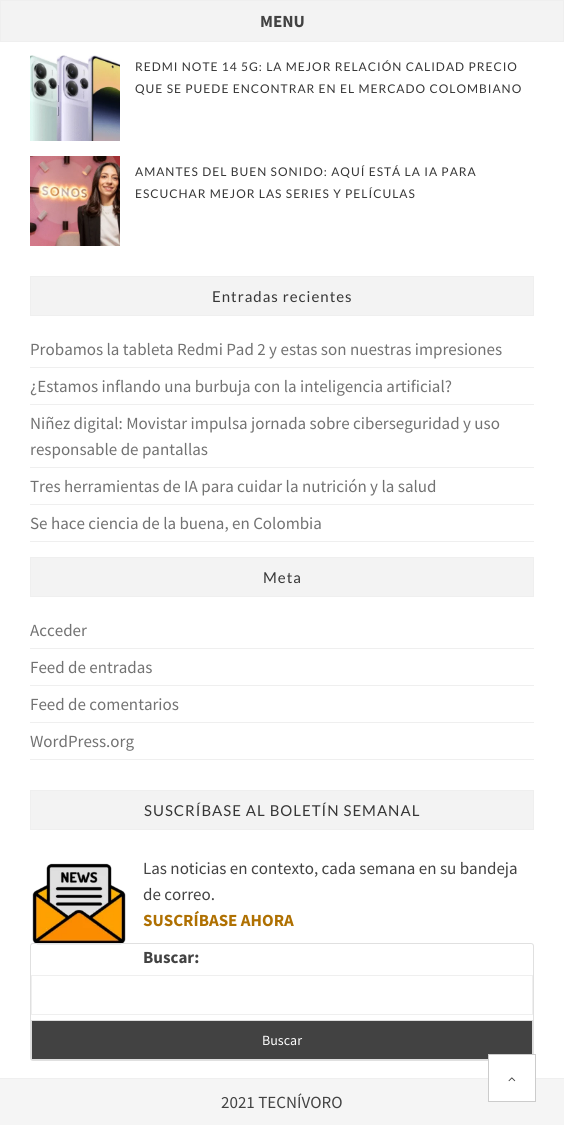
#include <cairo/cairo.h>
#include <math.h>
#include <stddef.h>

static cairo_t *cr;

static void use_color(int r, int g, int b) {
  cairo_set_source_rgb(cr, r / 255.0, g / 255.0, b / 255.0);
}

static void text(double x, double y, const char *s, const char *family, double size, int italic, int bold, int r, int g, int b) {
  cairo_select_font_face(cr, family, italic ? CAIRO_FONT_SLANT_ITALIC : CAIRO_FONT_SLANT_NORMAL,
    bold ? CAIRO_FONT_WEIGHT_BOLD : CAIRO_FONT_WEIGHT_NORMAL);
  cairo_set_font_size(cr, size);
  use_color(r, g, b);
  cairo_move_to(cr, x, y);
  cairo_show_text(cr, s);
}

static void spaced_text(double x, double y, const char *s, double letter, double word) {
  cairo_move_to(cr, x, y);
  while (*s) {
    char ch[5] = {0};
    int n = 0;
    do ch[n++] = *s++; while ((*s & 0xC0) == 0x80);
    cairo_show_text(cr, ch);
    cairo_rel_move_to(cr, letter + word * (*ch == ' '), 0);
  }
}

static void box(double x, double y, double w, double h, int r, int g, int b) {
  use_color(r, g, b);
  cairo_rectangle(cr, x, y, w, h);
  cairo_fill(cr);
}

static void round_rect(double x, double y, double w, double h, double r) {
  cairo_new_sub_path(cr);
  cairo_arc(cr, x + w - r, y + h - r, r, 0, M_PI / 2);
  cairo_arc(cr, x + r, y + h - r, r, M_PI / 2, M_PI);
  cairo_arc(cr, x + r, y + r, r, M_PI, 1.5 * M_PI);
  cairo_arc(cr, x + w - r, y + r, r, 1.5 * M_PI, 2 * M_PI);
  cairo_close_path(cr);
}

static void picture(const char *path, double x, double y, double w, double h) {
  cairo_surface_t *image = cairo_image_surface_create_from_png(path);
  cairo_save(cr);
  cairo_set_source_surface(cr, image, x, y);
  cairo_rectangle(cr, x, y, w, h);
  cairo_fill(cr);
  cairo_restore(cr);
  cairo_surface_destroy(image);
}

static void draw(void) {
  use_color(255, 255, 255);
  cairo_paint(cr);
  use_color(243, 243, 243);
  cairo_rectangle(cr, 0.5, 0.5, 563, 41);
  cairo_fill_preserve(cr);
  use_color(239, 239, 239);
  cairo_set_line_width(cr, 1);
  cairo_stroke(cr);
  picture("img_01.png", 30, 55, 90, 86);
  picture("img_02.png", 30, 156, 90, 90);
  use_color(243, 243, 243);
  cairo_rectangle(cr, 30.5, 276.5, 503, 39);
  cairo_fill_preserve(cr);
  use_color(239, 239, 239);
  cairo_stroke(cr);
  box(30, 367, 504, 1, 239, 239, 239);
  box(30, 404, 504, 1, 239, 239, 239);
  box(30, 467, 504, 1, 239, 239, 239);
  box(30, 504, 504, 1, 239, 239, 239);
  box(30, 541, 504, 1, 239, 239, 239);
  use_color(243, 243, 243);
  cairo_rectangle(cr, 30.5, 557.5, 503, 39);
  cairo_fill_preserve(cr);
  use_color(239, 239, 239);
  cairo_stroke(cr);
  box(30, 648, 504, 1, 239, 239, 239);
  box(30, 685, 504, 1, 239, 239, 239);
  box(30, 722, 504, 1, 239, 239, 239);
  box(30, 759, 504, 1, 239, 239, 239);
  picture("img_04.png", 32, 863, 94, 82);
  round_rect(30.5, 943.5, 503, 117, 2.5);
  use_color(224, 224, 224);
  cairo_stroke(cr);
  use_color(66, 66, 66);
  cairo_rectangle(cr, 31.5, 1020.5, 501, 39);
  cairo_fill_preserve(cr);
  use_color(221, 221, 221);
  cairo_stroke(cr);
  box(0, 1079, 564, 46, 245, 245, 245);
  box(0, 1078, 564, 1, 239, 239, 239);
  use_color(255, 255, 255);
  cairo_rectangle(cr, 488.5, 1054.5, 47, 47);
  cairo_fill_preserve(cr);
  use_color(204, 204, 204);
  cairo_stroke(cr);
  picture("img_03.png", 508, 1077, 8, 5);
  use_color(243, 243, 243);
  cairo_rectangle(cr, 30.5, 790.5, 503, 39);
  cairo_fill_preserve(cr);
  use_color(239, 239, 239);
  cairo_stroke(cr);
  cairo_rectangle(cr, 31.5, 975.5, 501, 39);
  cairo_stroke(cr);
  text(260, 27, "MENU", "Source Sans Pro", 17, 0, 1, 66, 66, 66);
  cairo_select_font_face(cr, "Lato", CAIRO_FONT_SLANT_NORMAL, CAIRO_FONT_WEIGHT_NORMAL);
  cairo_set_font_size(cr, 12);
  use_color(54, 54, 54);
  spaced_text(135, 71, "REDMI NOTE 14 5G: LA MEJOR RELACIÓN CALIDAD PRECIO", 1, 0);
  spaced_text(135, 93, "QUE SE PUEDE ENCONTRAR EN EL MERCADO COLOMBIANO", 1, 0);
  spaced_text(135, 176, "AMANTES DEL BUEN SONIDO: AQUÍ ESTÁ LA IA PARA", 1, 0);
  spaced_text(135, 198, "ESCUCHAR MEJOR LAS SERIES Y PELÍCULAS", 1, 0);
  cairo_set_font_size(cr, 15);
  spaced_text(212, 302, "Entradas recientes", 1, 0);
  text(30, 355, "Probamos la tableta Redmi Pad 2 y estas son nuestras impresiones", "Source Sans Pro", 17, 0, 0, 114, 114, 114);
  text(30, 392, "¿Estamos inflando una burbuja con la inteligencia artificial?", "Source Sans Pro", 17, 0, 0, 114, 114, 114);
  text(30, 429, "Niñez digital: Movistar impulsa jornada sobre ciberseguridad y uso", "Source Sans Pro", 17, 0, 0, 114, 114, 114);
  text(30, 455, "responsable de pantallas", "Source Sans Pro", 17, 0, 0, 114, 114, 114);
  text(30, 492, "Tres herramientas de IA para cuidar la nutrición y la salud", "Source Sans Pro", 17, 0, 0, 114, 114, 114);
  text(30, 529, "Se hace ciencia de la buena, en Colombia", "Source Sans Pro", 17, 0, 0, 114, 114, 114);
  cairo_select_font_face(cr, "Lato", CAIRO_FONT_SLANT_NORMAL, CAIRO_FONT_WEIGHT_NORMAL);
  cairo_set_font_size(cr, 15);
  use_color(54, 54, 54);
  spaced_text(263, 583, "Meta", 1, 0);
  text(30, 636, "Acceder", "Source Sans Pro", 17, 0, 0, 114, 114, 114);
  text(30, 673, "Feed de entradas", "Source Sans Pro", 17, 0, 0, 114, 114, 114);
  text(30, 710, "Feed de comentarios", "Source Sans Pro", 17, 0, 0, 114, 114, 114);
  text(30, 747, "WordPress.org", "Source Sans Pro", 17, 0, 0, 114, 114, 114);
  cairo_select_font_face(cr, "Lato", CAIRO_FONT_SLANT_NORMAL, CAIRO_FONT_WEIGHT_NORMAL);
  cairo_set_font_size(cr, 15);
  use_color(54, 54, 54);
  spaced_text(144, 816, "SUSCRÍBASE AL BOLETÍN SEMANAL", 1, 0);
  text(143, 874, "Las noticias en contexto, cada semana en su bandeja", "Source Sans Pro", 17, 0, 0, 66, 66, 66);
  text(143, 900, "de correo.", "Source Sans Pro", 17, 0, 0, 66, 66, 66);
  text(143, 926, "SUSCRÍBASE AHORA", "Source Sans Pro", 17, 0, 1, 175, 112, 1);
  text(143, 963, "Buscar:", "Source Sans Pro", 17, 0, 1, 66, 66, 66);
  text(262, 1045, "Buscar", "Source Sans Pro", 14, 0, 0, 255, 255, 255);
  text(221, 1108, "2021 TECNÍVORO", "Source Sans Pro", 17, 0, 0, 66, 66, 66);
}

int main(void) {
  cairo_surface_t *surface = cairo_image_surface_create(CAIRO_FORMAT_RGB24, 564, 1125);
  cr = cairo_create(surface);
  cairo_font_options_t *options = cairo_font_options_create();
  cairo_font_options_set_hint_metrics(options, CAIRO_HINT_METRICS_OFF);
  cairo_font_options_set_hint_style(options, CAIRO_HINT_STYLE_NONE);
  cairo_set_font_options(cr, options);
  cairo_set_miter_limit(cr, 4);
  draw();
  cairo_surface_write_to_png(surface, "out.png");
  cairo_font_options_destroy(options);
  cairo_destroy(cr);
  cairo_surface_destroy(surface);
  return 0;
}
